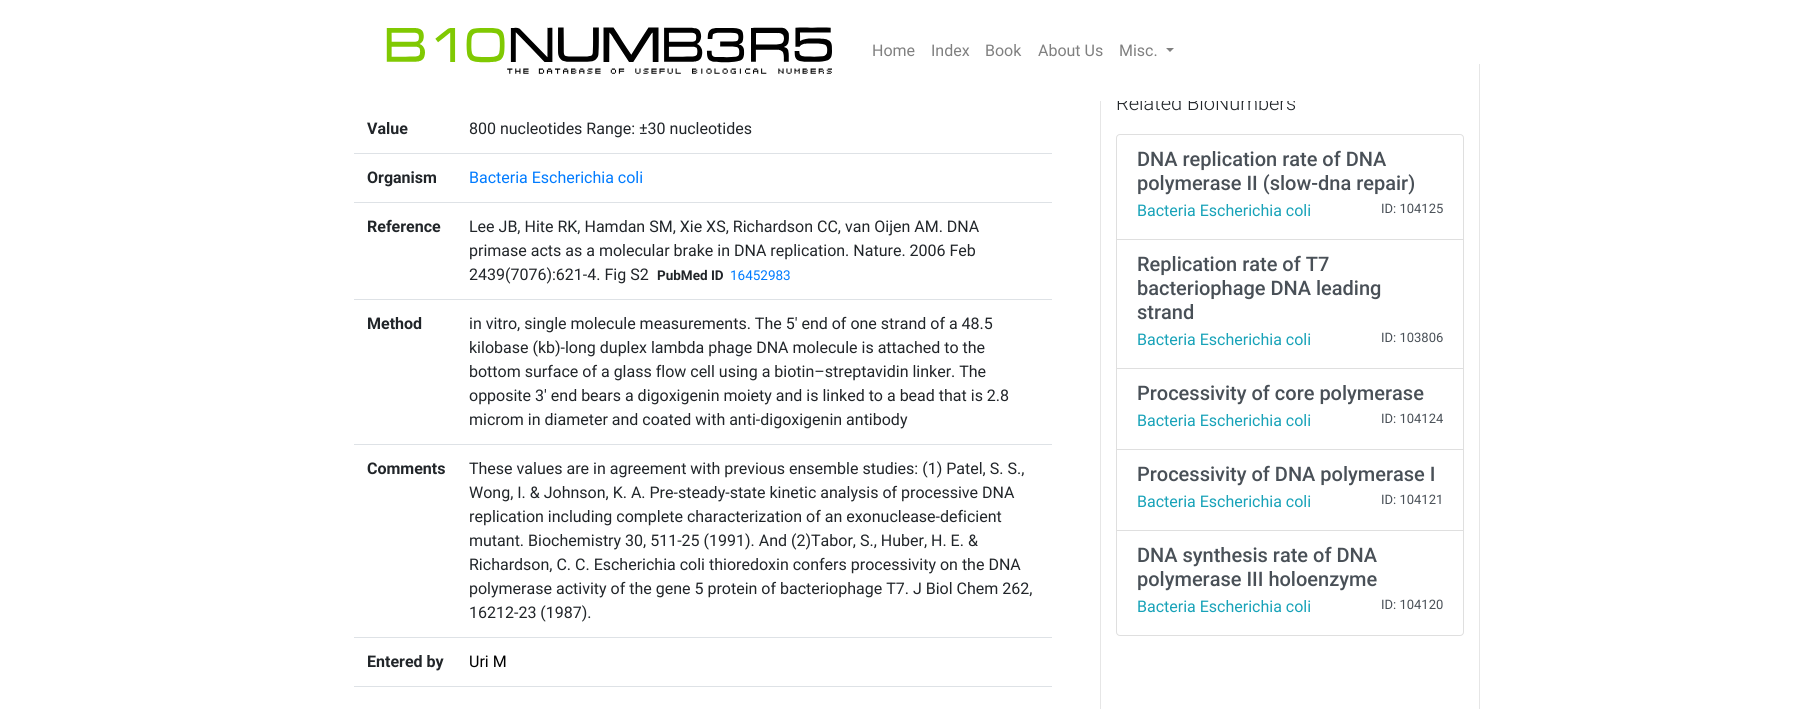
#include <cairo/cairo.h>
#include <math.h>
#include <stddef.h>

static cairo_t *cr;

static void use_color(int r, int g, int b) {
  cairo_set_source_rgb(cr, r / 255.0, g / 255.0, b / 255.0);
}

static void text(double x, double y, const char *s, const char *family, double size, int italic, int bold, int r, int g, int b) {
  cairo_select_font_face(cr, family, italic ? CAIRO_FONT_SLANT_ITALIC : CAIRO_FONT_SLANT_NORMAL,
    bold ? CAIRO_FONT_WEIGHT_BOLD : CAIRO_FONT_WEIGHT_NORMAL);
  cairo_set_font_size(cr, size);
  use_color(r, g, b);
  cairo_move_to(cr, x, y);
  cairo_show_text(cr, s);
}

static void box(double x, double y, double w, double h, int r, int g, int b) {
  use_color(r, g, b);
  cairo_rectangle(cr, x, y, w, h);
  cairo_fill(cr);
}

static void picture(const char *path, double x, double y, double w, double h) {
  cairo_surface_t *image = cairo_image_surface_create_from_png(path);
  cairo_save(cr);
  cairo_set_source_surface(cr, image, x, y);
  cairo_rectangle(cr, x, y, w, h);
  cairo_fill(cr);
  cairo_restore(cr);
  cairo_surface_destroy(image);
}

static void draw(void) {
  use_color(255, 255, 255);
  cairo_paint(cr);
  picture("img_01.png", 386, 27, 446, 47);
  use_color(128, 128, 128);
  cairo_new_path(cr);
  cairo_move_to(cr, 1166, 48);
  cairo_line_to(cr, 1174, 48);
  cairo_line_to(cr, 1170, 52);
  cairo_close_path(cr);
  cairo_fill(cr);
  box(354, 153, 698, 1, 222, 226, 230);
  box(354, 202, 698, 1, 222, 226, 230);
  box(354, 299, 698, 1, 222, 226, 230);
  box(354, 444, 698, 1, 222, 226, 230);
  box(354, 637, 698, 1, 222, 226, 230);
  box(354, 686, 698, 1, 222, 226, 230);
  box(1479, 64, 1, 645, 230, 230, 230);
  box(1100, 101, 1, 608, 230, 230, 230);
  cairo_new_path(cr);
  cairo_move_to(cr, 1120, 134.5);
  cairo_line_to(cr, 1460, 134.5);
  cairo_curve_to(cr, 1462, 134.5, 1463.5, 136, 1463.5, 138);
  cairo_line_to(cr, 1463.5, 239.5);
  cairo_line_to(cr, 1116.5, 239.5);
  cairo_line_to(cr, 1116.5, 138);
  cairo_curve_to(cr, 1116.5, 136, 1118, 134.5, 1120, 134.5);
  cairo_close_path(cr);
  use_color(223, 223, 223);
  cairo_set_line_width(cr, 1);
  cairo_stroke(cr);
  cairo_rectangle(cr, 1116.5, 239.5, 347, 129);
  cairo_stroke(cr);
  cairo_rectangle(cr, 1116.5, 368.5, 347, 81);
  cairo_stroke(cr);
  cairo_rectangle(cr, 1116.5, 449.5, 347, 81);
  cairo_stroke(cr);
  use_color(255, 255, 255);
  cairo_new_path(cr);
  cairo_move_to(cr, 1116.5, 530.5);
  cairo_line_to(cr, 1463.5, 530.5);
  cairo_line_to(cr, 1463.5, 632);
  cairo_curve_to(cr, 1463.5, 634, 1462, 635.5, 1460, 635.5);
  cairo_line_to(cr, 1120, 635.5);
  cairo_curve_to(cr, 1118, 635.5, 1116.5, 634, 1116.5, 632);
  cairo_close_path(cr);
  cairo_fill_preserve(cr);
  use_color(223, 223, 223);
  cairo_stroke(cr);
  text(872, 56, "Home", "Roboto", 16, 0, 0, 128, 128, 128);
  text(931, 56, "Index", "Roboto", 16, 0, 0, 128, 128, 128);
  text(985, 56, "Book", "Roboto", 16, 0, 0, 128, 128, 128);
  text(1038, 56, "About Us", "Roboto", 16, 0, 0, 128, 128, 128);
  text(1119, 56, "Misc.", "Roboto", 16, 0, 0, 128, 128, 128);
  text(367, 134, "Value", "Roboto", 16, 0, 1, 33, 37, 41);
  text(469, 134, "800 nucleotides Range: ±30 nucleotides", "Roboto", 16, 0, 0, 33, 37, 41);
  text(367, 183, "Organism", "Roboto", 16, 0, 1, 33, 37, 41);
  text(469, 183, "Bacteria Escherichia coli", "Roboto", 16, 0, 0, 0, 123, 255);
  text(367, 232, "Reference", "Roboto", 16, 0, 1, 33, 37, 41);
  text(469, 232, "Lee JB, Hite RK, Hamdan SM, Xie XS, Richardson CC, van Oijen AM. DNA", "Roboto", 16, 0, 0, 33, 37, 41);
  text(469, 256, "primase acts as a molecular brake in DNA replication. Nature. 2006 Feb", "Roboto", 16, 0, 0, 33, 37, 41);
  text(469, 280, "2439(7076):621-4. Fig S2", "Roboto", 16, 0, 0, 33, 37, 41);
  text(657, 280, "PubMed ID", "Roboto", 13.5, 0, 1, 33, 37, 41);
  text(730, 280, "16452983", "Roboto", 13.5, 0, 0, 0, 123, 255);
  text(367, 329, "Method", "Roboto", 16, 0, 1, 33, 37, 41);
  text(469, 329, "in vitro, single molecule measurements. The 5' end of one strand of a 48.5", "Roboto", 16, 0, 0, 33, 37, 41);
  text(469, 353, "kilobase (kb)-long duplex lambda phage DNA molecule is attached to the", "Roboto", 16, 0, 0, 33, 37, 41);
  text(469, 377, "bottom surface of a glass flow cell using a biotin–streptavidin linker. The", "Roboto", 16, 0, 0, 33, 37, 41);
  text(469, 401, "opposite 3' end bears a digoxigenin moiety and is linked to a bead that is 2.8", "Roboto", 16, 0, 0, 33, 37, 41);
  text(469, 425, "microm in diameter and coated with anti-digoxigenin antibody", "Roboto", 16, 0, 0, 33, 37, 41);
  text(367, 474, "Comments", "Roboto", 16, 0, 1, 33, 37, 41);
  text(469, 474, "These values are in agreement with previous ensemble studies: (1) Patel, S. S.,", "Roboto", 16, 0, 0, 33, 37, 41);
  text(469, 498, "Wong, I. & Johnson, K. A. Pre-steady-state kinetic analysis of processive DNA", "Roboto", 16, 0, 0, 33, 37, 41);
  text(469, 522, "replication including complete characterization of an exonuclease-deficient", "Roboto", 16, 0, 0, 33, 37, 41);
  text(469, 546, "mutant. Biochemistry 30, 511-25 (1991). And (2)Tabor, S., Huber, H. E. &", "Roboto", 16, 0, 0, 33, 37, 41);
  text(469, 570, "Richardson, C. C. Escherichia coli thioredoxin confers processivity on the DNA", "Roboto", 16, 0, 0, 33, 37, 41);
  text(469, 594, "polymerase activity of the gene 5 protein of bacteriophage T7. J Biol Chem 262,", "Roboto", 16, 0, 0, 33, 37, 41);
  text(469, 618, "16212-23 (1987).", "Roboto", 16, 0, 0, 33, 37, 41);
  text(367, 667, "Entered by", "Roboto", 16, 0, 1, 33, 37, 41);
  text(469, 667, "Uri M", "Roboto", 16, 0, 0, 0, 0, 0);
  text(1116, 110, "Related BioNumbers", "Roboto Light", 20, 0, 0, 33, 37, 41);
  box(1117, 95, 178, 6, 255, 255, 255);
  text(1137, 166, "DNA replication rate of DNA", "Roboto Medium", 20, 0, 0, 73, 80, 87);
  text(1137, 190, "polymerase II (slow-dna repair)", "Roboto Medium", 20, 0, 0, 73, 80, 87);
  text(1137, 216, "Bacteria Escherichia coli", "Roboto", 16, 0, 0, 23, 162, 184);
  text(1381, 213, "ID: 104125", "Roboto", 13, 0, 0, 73, 80, 87);
  text(1137, 271, "Replication rate of T7", "Roboto Medium", 20, 0, 0, 73, 80, 87);
  text(1137, 295, "bacteriophage DNA leading", "Roboto Medium", 20, 0, 0, 73, 80, 87);
  text(1137, 319, "strand", "Roboto Medium", 20, 0, 0, 73, 80, 87);
  text(1137, 345, "Bacteria Escherichia coli", "Roboto", 16, 0, 0, 23, 162, 184);
  text(1381, 342, "ID: 103806", "Roboto", 13, 0, 0, 73, 80, 87);
  text(1137, 400, "Processivity of core polymerase", "Roboto Medium", 20, 0, 0, 73, 80, 87);
  text(1137, 426, "Bacteria Escherichia coli", "Roboto", 16, 0, 0, 23, 162, 184);
  text(1381, 423, "ID: 104124", "Roboto", 13, 0, 0, 73, 80, 87);
  text(1137, 481, "Processivity of DNA polymerase I", "Roboto Medium", 20, 0, 0, 73, 80, 87);
  text(1137, 507, "Bacteria Escherichia coli", "Roboto", 16, 0, 0, 23, 162, 184);
  text(1381, 504, "ID: 104121", "Roboto", 13, 0, 0, 73, 80, 87);
  text(1137, 562, "DNA synthesis rate of DNA", "Roboto Medium", 20, 0, 0, 73, 80, 87);
  text(1137, 586, "polymerase III holoenzyme", "Roboto Medium", 20, 0, 0, 73, 80, 87);
  text(1137, 612, "Bacteria Escherichia coli", "Roboto", 16, 0, 0, 23, 162, 184);
  text(1381, 609, "ID: 104120", "Roboto", 13, 0, 0, 73, 80, 87);
}

int main(void) {
  cairo_surface_t *surface = cairo_image_surface_create(CAIRO_FORMAT_RGB24, 1819, 709);
  cr = cairo_create(surface);
  cairo_font_options_t *options = cairo_font_options_create();
  cairo_font_options_set_hint_metrics(options, CAIRO_HINT_METRICS_OFF);
  cairo_font_options_set_hint_style(options, CAIRO_HINT_STYLE_NONE);
  cairo_set_font_options(cr, options);
  cairo_set_miter_limit(cr, 4);
  draw();
  cairo_surface_write_to_png(surface, "out.png");
  cairo_font_options_destroy(options);
  cairo_destroy(cr);
  cairo_surface_destroy(surface);
  return 0;
}
